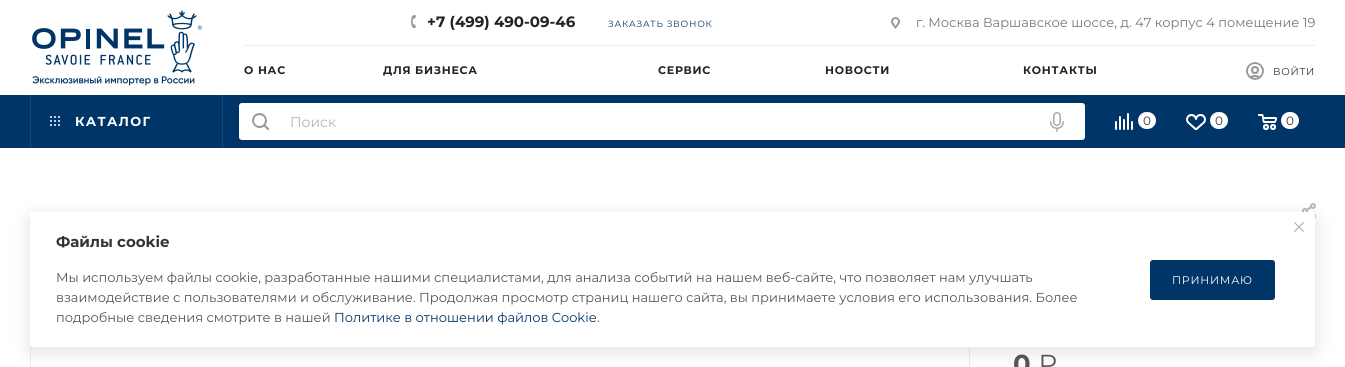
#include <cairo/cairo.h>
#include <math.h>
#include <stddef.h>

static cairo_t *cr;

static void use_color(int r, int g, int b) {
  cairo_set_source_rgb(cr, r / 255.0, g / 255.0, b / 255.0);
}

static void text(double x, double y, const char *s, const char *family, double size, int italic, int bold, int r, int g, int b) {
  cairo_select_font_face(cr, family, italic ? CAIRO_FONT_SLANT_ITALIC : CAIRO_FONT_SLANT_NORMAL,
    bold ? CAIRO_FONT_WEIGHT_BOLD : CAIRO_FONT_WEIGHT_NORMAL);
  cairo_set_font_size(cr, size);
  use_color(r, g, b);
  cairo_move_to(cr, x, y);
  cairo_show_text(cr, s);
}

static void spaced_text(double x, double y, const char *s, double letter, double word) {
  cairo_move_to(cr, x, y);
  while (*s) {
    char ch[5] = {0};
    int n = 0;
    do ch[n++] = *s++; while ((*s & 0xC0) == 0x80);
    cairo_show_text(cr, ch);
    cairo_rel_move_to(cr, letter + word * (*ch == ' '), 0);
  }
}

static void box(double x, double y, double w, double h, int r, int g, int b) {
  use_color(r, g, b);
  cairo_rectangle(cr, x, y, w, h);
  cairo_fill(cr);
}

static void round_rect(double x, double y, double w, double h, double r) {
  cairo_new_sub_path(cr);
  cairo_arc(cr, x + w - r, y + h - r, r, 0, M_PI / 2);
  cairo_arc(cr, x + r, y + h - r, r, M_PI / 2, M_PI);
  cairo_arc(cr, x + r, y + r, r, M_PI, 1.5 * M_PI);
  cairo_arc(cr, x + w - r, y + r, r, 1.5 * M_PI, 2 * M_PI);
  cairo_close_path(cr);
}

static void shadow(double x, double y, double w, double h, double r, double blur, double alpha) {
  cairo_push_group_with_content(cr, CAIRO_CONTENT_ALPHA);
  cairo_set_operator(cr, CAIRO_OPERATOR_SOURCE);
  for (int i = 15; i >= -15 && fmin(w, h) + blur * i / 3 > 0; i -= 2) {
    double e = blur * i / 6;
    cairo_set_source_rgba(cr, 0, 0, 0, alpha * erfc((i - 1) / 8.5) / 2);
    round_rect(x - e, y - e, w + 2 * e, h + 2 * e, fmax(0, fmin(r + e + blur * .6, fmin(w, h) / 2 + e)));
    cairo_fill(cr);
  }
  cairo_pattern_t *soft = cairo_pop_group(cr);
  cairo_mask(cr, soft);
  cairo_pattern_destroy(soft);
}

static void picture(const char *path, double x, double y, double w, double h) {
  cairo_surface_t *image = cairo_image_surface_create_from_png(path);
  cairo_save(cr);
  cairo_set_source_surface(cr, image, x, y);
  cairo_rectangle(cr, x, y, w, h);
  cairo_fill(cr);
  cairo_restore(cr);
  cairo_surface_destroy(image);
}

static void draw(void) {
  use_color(255, 255, 255);
  cairo_paint(cr);
  picture("img_01.png", 32, 10, 170, 76);
  picture("img_02.png", 411, 15, 5, 13);
  picture("img_03.png", 891, 17, 9, 12);
  box(244, 45, 1071, 1, 237, 237, 237);
  picture("img_04.png", 1246, 62, 18, 18);
  box(0, 95, 1345, 53, 0, 53, 103);
  box(222, 95, 1, 53, 26, 73, 118);
  box(30, 95, 1, 53, 26, 73, 118);
  picture("img_05.png", 50, 116, 10, 10);
  use_color(255, 255, 255);
  round_rect(239.5, 103.5, 845, 36, 2.5);
  cairo_fill_preserve(cr);
  cairo_set_line_width(cr, 1);
  cairo_stroke(cr);
  picture("img_06.png", 252, 113, 17, 17);
  picture("img_07.png", 1050, 112, 14, 20);
  picture("img_08.png", 1115, 113, 18, 17);
  round_rect(1138, 112, 18, 17, 8.5);
  cairo_fill(cr);
  picture("img_09.png", 1186, 114, 20, 16);
  round_rect(1210, 112, 18, 17, 8.5);
  cairo_fill(cr);
  picture("img_10.png", 1258, 114, 19, 16);
  round_rect(1281, 112, 18, 17, 8.5);
  cairo_fill(cr);
  picture("img_11.png", 1302, 203, 14, 16);
  round_rect(30.5, 346.5, 939, 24, 2.5);
  use_color(236, 236, 236);
  cairo_stroke(cr);
  use_color(0, 0, 0);
  shadow(30, 217, 1285, 135, 3, 10, 0.12);
  use_color(255, 255, 255);
  round_rect(30, 212, 1285, 135, 3);
  cairo_fill(cr);
  cairo_new_path(cr);
  cairo_move_to(cr, 1283, 212);
  cairo_line_to(cr, 1312, 212);
  cairo_curve_to(cr, 1313.5, 212, 1315, 213.5, 1315, 215);
  cairo_line_to(cr, 1315, 244);
  cairo_line_to(cr, 1286, 244);
  cairo_curve_to(cr, 1284.5, 244, 1283, 242.5, 1283, 241);
  cairo_close_path(cr);
  cairo_fill(cr);
  picture("img_12.png", 1294, 222, 10, 10);
  use_color(0, 53, 103);
  round_rect(1150.5, 260.5, 124, 39, 2.5);
  cairo_fill_preserve(cr);
  cairo_stroke(cr);
  text(427, 27, "+7 (499) 490-09-46", "Montserrat", 15, 0, 1, 34, 34, 34);
  cairo_select_font_face(cr, "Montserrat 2", CAIRO_FONT_SLANT_NORMAL, CAIRO_FONT_WEIGHT_NORMAL);
  cairo_set_font_size(cr, 9);
  use_color(0, 53, 103);
  spaced_text(608, 27, "ЗАКАЗАТЬ ЗВОНОК", 0.75, 0);
  text(916, 27, "г. Москва Варшавское шоссе, д. 47 корпус 4 помещение 19", "Montserrat 2", 13, 0, 0, 119, 119, 119);
  cairo_select_font_face(cr, "Montserrat", CAIRO_FONT_SLANT_NORMAL, CAIRO_FONT_WEIGHT_BOLD);
  cairo_set_font_size(cr, 11);
  use_color(34, 34, 34);
  spaced_text(244, 74, "О НАС", 0.75, 0);
  spaced_text(383, 74, "ДЛЯ БИЗНЕСА", 0.75, 0);
  spaced_text(658, 74, "СЕРВИС", 0.75, 0);
  spaced_text(825, 74, "НОВОСТИ", 0.75, 0);
  spaced_text(1023, 74, "КОНТАКТЫ", 0.75, 0);
  cairo_select_font_face(cr, "Montserrat 2", CAIRO_FONT_SLANT_NORMAL, CAIRO_FONT_WEIGHT_NORMAL);
  cairo_set_font_size(cr, 10);
  use_color(51, 51, 51);
  spaced_text(1273, 75, "ВОЙТИ", 0.75, 0);
  cairo_select_font_face(cr, "Montserrat", CAIRO_FONT_SLANT_NORMAL, CAIRO_FONT_WEIGHT_BOLD);
  cairo_set_font_size(cr, 13);
  use_color(255, 255, 255);
  spaced_text(75, 126, "КАТАЛОГ", 1.25, 0);
  text(290, 127, "Поиск", "Montserrat 2", 14, 0, 0, 171, 181, 190);
  text(1143, 125, "0", "Montserrat 2", 12, 0, 0, 51, 51, 51);
  text(1215, 125, "0", "Montserrat 2", 12, 0, 0, 51, 51, 51);
  text(1286, 125, "0", "Montserrat 2", 12, 0, 0, 51, 51, 51);
  text(1013, 373, "0", "Montserrat", 26, 0, 1, 85, 85, 85);
  text(1038, 373, "₽", "Montserrat", 26, 0, 0, 85, 85, 85);
  text(56, 247, "Файлы cookie", "Montserrat", 15, 0, 1, 51, 51, 51);
  text(56, 282, "Мы используем файлы cookie, разработанные нашими специалистами, для анализа событий на нашем веб-сайте, что позволяет нам улучшать", "Montserrat 2", 13, 0, 0, 85, 85, 85);
  text(56, 302, "взаимодействие с пользователями и обслуживание. Продолжая просмотр страниц нашего сайта, вы принимаете условия его использования. Более", "Montserrat 2", 13, 0, 0, 85, 85, 85);
  text(56, 322, "подробные сведения смотрите в нашей", "Montserrat 2", 13, 0, 0, 85, 85, 85);
  text(334, 322, "Политике в отношении файлов Cookie", "Montserrat 2", 13, 0, 0, 0, 53, 103);
  text(597, 322, ".", "Montserrat 2", 13, 0, 0, 85, 85, 85);
  cairo_set_font_size(cr, 11);
  use_color(255, 255, 255);
  spaced_text(1172, 284, "ПРИНИМАЮ", 0.75, 0);
}

int main(void) {
  cairo_surface_t *surface = cairo_image_surface_create(CAIRO_FORMAT_RGB24, 1345, 367);
  cr = cairo_create(surface);
  cairo_font_options_t *options = cairo_font_options_create();
  cairo_font_options_set_hint_metrics(options, CAIRO_HINT_METRICS_OFF);
  cairo_font_options_set_hint_style(options, CAIRO_HINT_STYLE_NONE);
  cairo_set_font_options(cr, options);
  cairo_set_miter_limit(cr, 4);
  draw();
  cairo_surface_write_to_png(surface, "out.png");
  cairo_font_options_destroy(options);
  cairo_destroy(cr);
  cairo_surface_destroy(surface);
  return 0;
}
